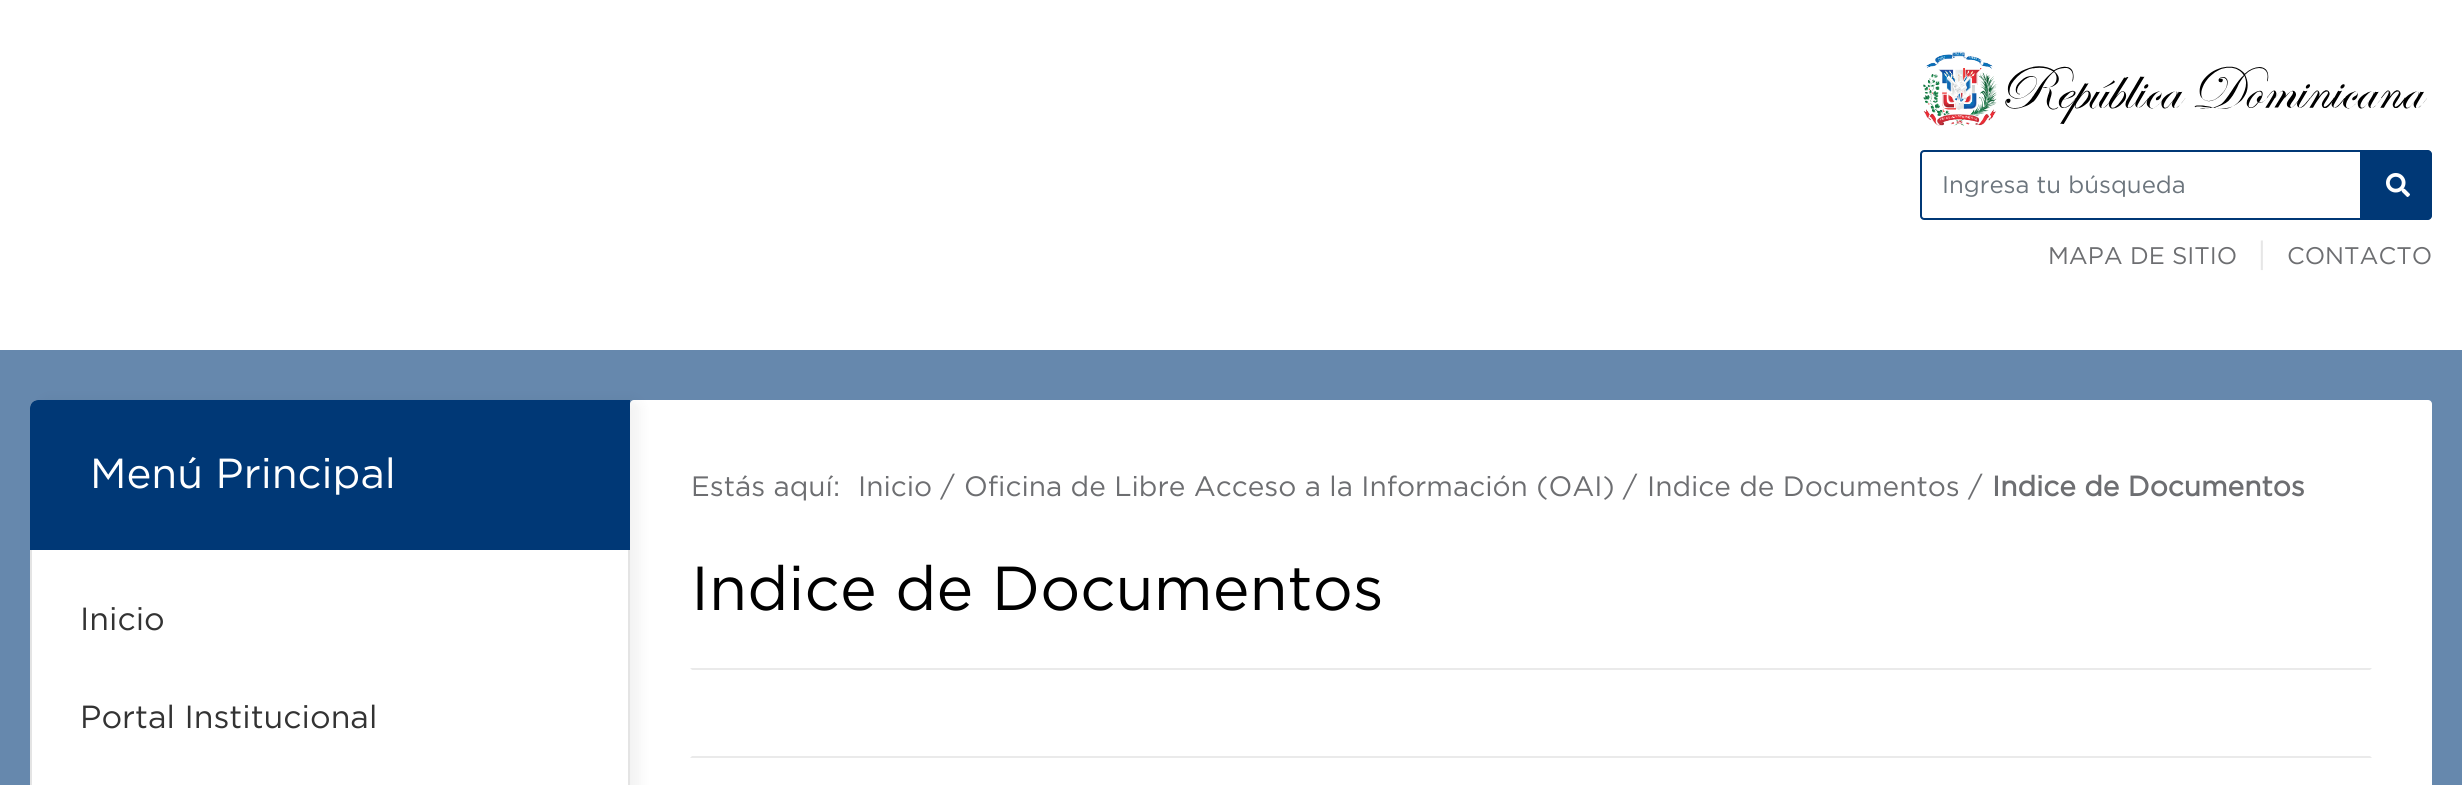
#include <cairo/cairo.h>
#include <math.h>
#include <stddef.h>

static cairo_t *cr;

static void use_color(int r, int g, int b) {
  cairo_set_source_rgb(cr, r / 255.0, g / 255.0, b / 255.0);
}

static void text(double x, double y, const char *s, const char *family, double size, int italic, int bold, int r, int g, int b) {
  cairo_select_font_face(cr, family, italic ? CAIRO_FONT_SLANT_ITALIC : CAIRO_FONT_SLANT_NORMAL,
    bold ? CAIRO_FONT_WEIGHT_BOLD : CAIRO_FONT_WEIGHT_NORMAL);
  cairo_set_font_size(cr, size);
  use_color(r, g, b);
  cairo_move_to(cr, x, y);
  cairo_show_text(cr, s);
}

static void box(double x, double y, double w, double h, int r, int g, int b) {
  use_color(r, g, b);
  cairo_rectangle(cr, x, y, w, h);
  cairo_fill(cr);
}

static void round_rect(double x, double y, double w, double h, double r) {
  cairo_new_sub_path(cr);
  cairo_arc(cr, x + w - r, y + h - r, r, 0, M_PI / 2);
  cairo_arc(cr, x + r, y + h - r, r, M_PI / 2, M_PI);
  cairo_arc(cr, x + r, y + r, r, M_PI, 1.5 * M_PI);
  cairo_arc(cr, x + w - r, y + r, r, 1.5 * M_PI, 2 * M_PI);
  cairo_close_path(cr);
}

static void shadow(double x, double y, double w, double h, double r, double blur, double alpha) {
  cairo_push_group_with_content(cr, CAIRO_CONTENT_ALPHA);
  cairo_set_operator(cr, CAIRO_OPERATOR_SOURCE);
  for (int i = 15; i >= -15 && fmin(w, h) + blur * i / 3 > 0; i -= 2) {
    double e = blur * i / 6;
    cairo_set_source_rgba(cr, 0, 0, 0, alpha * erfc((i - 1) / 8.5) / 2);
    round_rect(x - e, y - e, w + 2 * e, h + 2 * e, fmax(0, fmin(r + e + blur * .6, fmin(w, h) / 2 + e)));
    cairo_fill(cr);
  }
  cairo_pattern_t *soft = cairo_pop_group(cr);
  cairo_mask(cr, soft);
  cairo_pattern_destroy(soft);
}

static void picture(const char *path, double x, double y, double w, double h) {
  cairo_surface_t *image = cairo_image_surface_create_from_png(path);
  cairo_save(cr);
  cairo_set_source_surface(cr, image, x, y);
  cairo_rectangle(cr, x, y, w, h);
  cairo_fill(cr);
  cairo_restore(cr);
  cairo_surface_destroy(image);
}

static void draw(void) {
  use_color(255, 255, 255);
  cairo_paint(cr);
  picture("img_01.png", 1923, 51, 504, 75);
  cairo_new_path(cr);
  cairo_move_to(cr, 1924, 151);
  cairo_line_to(cr, 2361, 151);
  cairo_line_to(cr, 2361, 219);
  cairo_line_to(cr, 1924, 219);
  cairo_curve_to(cr, 1922.5, 219, 1921, 217.5, 1921, 216);
  cairo_line_to(cr, 1921, 154);
  cairo_curve_to(cr, 1921, 152.5, 1922.5, 151, 1924, 151);
  cairo_close_path(cr);
  use_color(0, 56, 118);
  cairo_stroke(cr);
  cairo_new_path(cr);
  cairo_move_to(cr, 2362, 150);
  cairo_line_to(cr, 2428, 150);
  cairo_curve_to(cr, 2430, 150, 2432, 152, 2432, 154);
  cairo_line_to(cr, 2432, 216);
  cairo_curve_to(cr, 2432, 218, 2430, 220, 2428, 220);
  cairo_line_to(cr, 2362, 220);
  cairo_close_path(cr);
  cairo_fill(cr);
  picture("img_02.png", 2386, 173, 24, 24);
  box(0, 350, 2462, 435, 102, 136, 173);
  use_color(255, 255, 255);
  round_rect(630, 400, 1802, 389, 4);
  cairo_fill(cr);
  use_color(0, 0, 0);
  shadow(40, 400, 600, 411, 8, 6, 0.05);
  use_color(255, 255, 255);
  cairo_new_path(cr);
  cairo_move_to(cr, 38, 401);
  cairo_line_to(cr, 629, 401);
  cairo_line_to(cr, 629, 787);
  cairo_curve_to(cr, 629, 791, 626, 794, 622, 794);
  cairo_line_to(cr, 38, 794);
  cairo_curve_to(cr, 34, 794, 31, 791, 31, 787);
  cairo_line_to(cr, 31, 408);
  cairo_curve_to(cr, 31, 404, 34, 401, 38, 401);
  cairo_close_path(cr);
  cairo_fill_preserve(cr);
  use_color(228, 228, 228);
  cairo_stroke(cr);
  use_color(0, 56, 118);
  cairo_new_path(cr);
  cairo_move_to(cr, 38, 400);
  cairo_line_to(cr, 630, 400);
  cairo_line_to(cr, 630, 550);
  cairo_line_to(cr, 30, 550);
  cairo_line_to(cr, 30, 408);
  cairo_curve_to(cr, 30, 403.5, 33.5, 400, 38, 400);
  cairo_close_path(cr);
  cairo_fill(cr);
  use_color(234, 234, 234);
  cairo_new_path(cr);
  cairo_move_to(cr, 690, 668);
  cairo_line_to(cr, 2372, 668);
  cairo_line_to(cr, 2370, 670);
  cairo_line_to(cr, 692, 670);
  cairo_close_path(cr);
  cairo_fill(cr);
  cairo_new_path(cr);
  cairo_move_to(cr, 2372, 758);
  cairo_line_to(cr, 690, 758);
  cairo_line_to(cr, 692, 756);
  cairo_line_to(cr, 2370, 756);
  cairo_close_path(cr);
  cairo_fill(cr);
  text(1942, 193, "Ingresa tu búsqueda", "Gotham", 24, 0, 0, 108, 117, 125);
  text(2048, 264, "MAPA DE SITIO", "Gotham", 24, 0, 0, 109, 110, 113);
  text(2257, 266, "|", "Gotham", 32, 0, 0, 230, 230, 230);
  text(2287, 264, "CONTACTO", "Gotham", 24, 0, 0, 109, 110, 113);
  text(90, 488, "Menú Principal", "Gotham", 42, 0, 0, 255, 255, 255);
  text(80, 630, "Inicio", "Gotham", 32, 0, 0, 51, 51, 51);
  text(80, 728, "Portal Institucional", "Gotham", 32, 0, 0, 51, 51, 51);
  text(691, 496, "Estás aquí:", "Gotham", 28, 0, 0, 109, 110, 113);
  text(858, 496, "Inicio /", "Gotham", 28, 0, 0, 109, 110, 113);
  text(964, 496, "Oficina de Libre Acceso a la Información (OAI) /", "Gotham", 28, 0, 0, 109, 110, 113);
  text(1647, 496, "Indice de Documentos /", "Gotham", 28, 0, 0, 109, 110, 113);
  text(1992, 496, "Indice de Documentos", "Gotham", 28, 0, 1, 109, 110, 113);
  text(691, 610, "Indice de Documentos", "Gotham", 62, 0, 0, 0, 0, 0);
}

int main(void) {
  cairo_surface_t *surface = cairo_image_surface_create(CAIRO_FORMAT_RGB24, 2462, 785);
  cr = cairo_create(surface);
  cairo_font_options_t *options = cairo_font_options_create();
  cairo_font_options_set_hint_metrics(options, CAIRO_HINT_METRICS_OFF);
  cairo_font_options_set_hint_style(options, CAIRO_HINT_STYLE_NONE);
  cairo_set_font_options(cr, options);
  cairo_set_miter_limit(cr, 4);
  draw();
  cairo_surface_write_to_png(surface, "out.png");
  cairo_font_options_destroy(options);
  cairo_destroy(cr);
  cairo_surface_destroy(surface);
  return 0;
}
